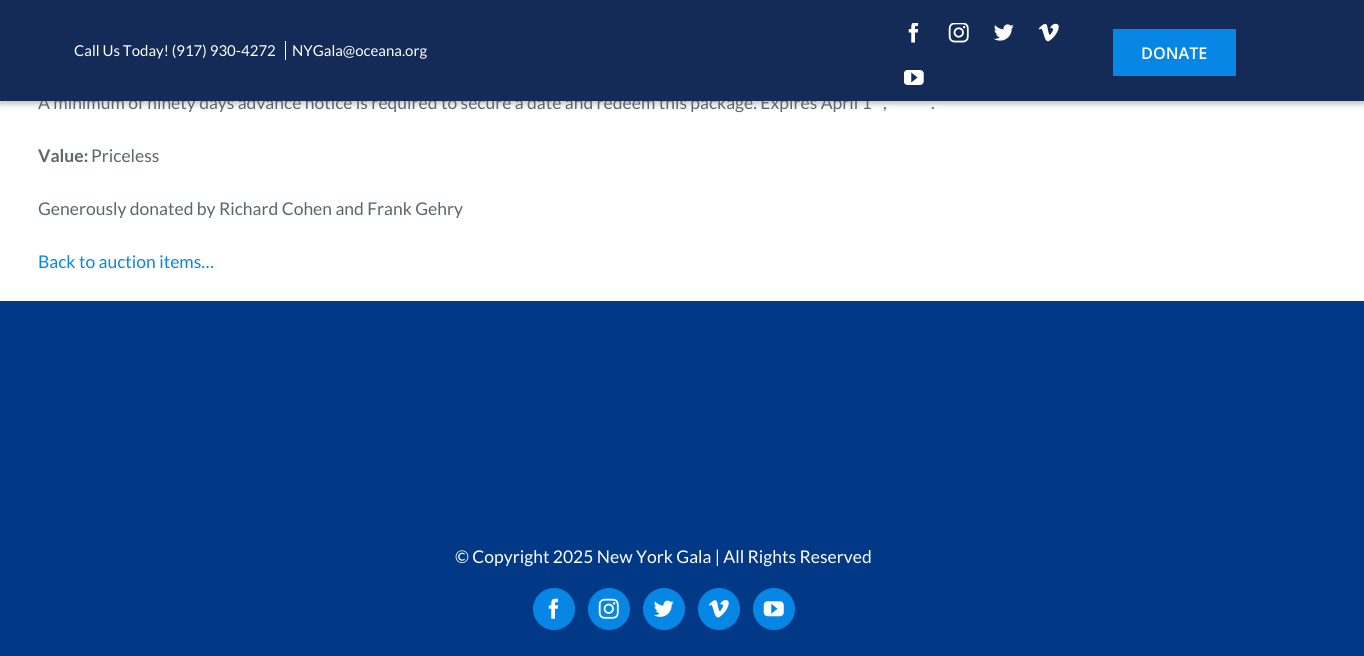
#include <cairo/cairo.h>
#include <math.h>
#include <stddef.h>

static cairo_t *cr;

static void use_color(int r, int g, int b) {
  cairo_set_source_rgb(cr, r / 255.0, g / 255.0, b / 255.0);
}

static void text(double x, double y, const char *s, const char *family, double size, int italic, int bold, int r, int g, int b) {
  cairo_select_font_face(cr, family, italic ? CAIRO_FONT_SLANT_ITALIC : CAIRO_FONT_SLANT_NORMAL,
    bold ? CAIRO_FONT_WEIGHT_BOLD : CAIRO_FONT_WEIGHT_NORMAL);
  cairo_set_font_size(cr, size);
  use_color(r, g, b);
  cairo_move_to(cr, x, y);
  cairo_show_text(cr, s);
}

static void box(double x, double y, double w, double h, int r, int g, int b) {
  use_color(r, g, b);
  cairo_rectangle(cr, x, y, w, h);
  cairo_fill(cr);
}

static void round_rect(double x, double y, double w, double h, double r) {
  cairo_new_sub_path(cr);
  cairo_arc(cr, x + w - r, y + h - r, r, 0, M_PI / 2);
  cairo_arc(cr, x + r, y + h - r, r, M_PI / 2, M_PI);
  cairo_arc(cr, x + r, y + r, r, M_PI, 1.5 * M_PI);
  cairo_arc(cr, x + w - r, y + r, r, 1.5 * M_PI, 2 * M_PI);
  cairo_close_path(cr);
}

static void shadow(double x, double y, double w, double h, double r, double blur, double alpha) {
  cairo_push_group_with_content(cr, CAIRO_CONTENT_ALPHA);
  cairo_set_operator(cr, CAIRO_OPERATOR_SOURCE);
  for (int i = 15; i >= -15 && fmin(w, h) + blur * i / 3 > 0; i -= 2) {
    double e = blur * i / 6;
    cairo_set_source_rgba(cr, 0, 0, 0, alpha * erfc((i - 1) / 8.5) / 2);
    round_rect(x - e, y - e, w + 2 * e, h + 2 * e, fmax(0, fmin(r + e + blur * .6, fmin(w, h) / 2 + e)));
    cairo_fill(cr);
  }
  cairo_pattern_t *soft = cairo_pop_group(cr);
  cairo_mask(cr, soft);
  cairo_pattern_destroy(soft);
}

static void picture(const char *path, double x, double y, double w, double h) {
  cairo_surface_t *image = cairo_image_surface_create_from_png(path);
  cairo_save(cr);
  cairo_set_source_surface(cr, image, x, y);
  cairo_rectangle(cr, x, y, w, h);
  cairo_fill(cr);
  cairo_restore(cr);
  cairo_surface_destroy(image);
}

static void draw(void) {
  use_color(255, 255, 255);
  cairo_paint(cr);
  use_color(0, 0, 0);
  shadow(0, 3, 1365, 101, 0, 3, 0.25);
  box(0, 301, 1364, 355, 2, 57, 134);
  use_color(6, 134, 229);
  cairo_arc(cr, 554, 609, 20.5, 0, 2 * M_PI);
  cairo_fill_preserve(cr);
  cairo_set_line_width(cr, 1);
  cairo_stroke(cr);
  picture("img_06.png", 548, 598, 11, 21);
  cairo_arc(cr, 609, 609, 20.5, 0, 2 * M_PI);
  cairo_fill_preserve(cr);
  cairo_stroke(cr);
  picture("img_07.png", 598, 598, 21, 21);
  cairo_arc(cr, 664, 609, 20.5, 0, 2 * M_PI);
  cairo_fill_preserve(cr);
  cairo_stroke(cr);
  picture("img_08.png", 654, 600, 20, 17);
  cairo_arc(cr, 719, 609, 20.5, 0, 2 * M_PI);
  cairo_fill_preserve(cr);
  cairo_stroke(cr);
  picture("img_09.png", 708, 600, 21, 18);
  cairo_arc(cr, 774, 609, 20.5, 0, 2 * M_PI);
  cairo_fill_preserve(cr);
  cairo_stroke(cr);
  picture("img_10.png", 763, 601, 21, 16);
  text(38, 109, "A minimum of ninety days advance notice is required to secure a date and redeem this package. Expires April 1", "Lato", 17.5, 0, 0, 92, 102, 104);
  box(0, 0, 1364, 101, 20, 43, 88);
  box(1113, 29, 123, 47, 6, 134, 229);
  text(1141, 59, "DONATE", "Open Sans SemiBold", 16.25, 0, 0, 255, 255, 255);
  picture("img_05.png", 904, 70, 20, 15);
  picture("img_04.png", 1038, 23, 21, 19);
  picture("img_03.png", 994, 24, 20, 17);
  picture("img_02.png", 948, 23, 21, 20);
  picture("img_01.png", 908, 23, 11, 20);
  text(292, 56, "NYGala@oceana.org", "Lato", 15, 0, 0, 255, 255, 255);
  box(285, 41, 1, 19, 255, 255, 255);
  text(74, 56, "Call Us Today! (917) 930-4272", "Lato", 15, 0, 0, 255, 255, 255);
  text(883, 109, ",", "Lato", 17.5, 0, 0, 92, 102, 104);
  text(931, 109, ".", "Lato", 17.5, 0, 0, 92, 102, 104);
  text(38, 162, "Value:", "Lato", 17.5, 0, 1, 92, 102, 104);
  text(91, 162, "Priceless", "Lato", 17.5, 0, 0, 92, 102, 104);
  text(38, 215, "Generously donated by Richard Cohen and Frank Gehry", "Lato", 17.5, 0, 0, 92, 102, 104);
  text(38, 268, "Back to auction items…", "Lato", 17.5, 0, 0, 6, 134, 229);
  text(455, 563, "© Copyright 2025 New York Gala | All Rights Reserved", "Lato", 17.5, 0, 0, 255, 255, 255);
}

int main(void) {
  cairo_surface_t *surface = cairo_image_surface_create(CAIRO_FORMAT_RGB24, 1364, 656);
  cr = cairo_create(surface);
  cairo_font_options_t *options = cairo_font_options_create();
  cairo_font_options_set_hint_metrics(options, CAIRO_HINT_METRICS_OFF);
  cairo_font_options_set_hint_style(options, CAIRO_HINT_STYLE_NONE);
  cairo_set_font_options(cr, options);
  cairo_set_miter_limit(cr, 4);
  draw();
  cairo_surface_write_to_png(surface, "out.png");
  cairo_font_options_destroy(options);
  cairo_destroy(cr);
  cairo_surface_destroy(surface);
  return 0;
}
